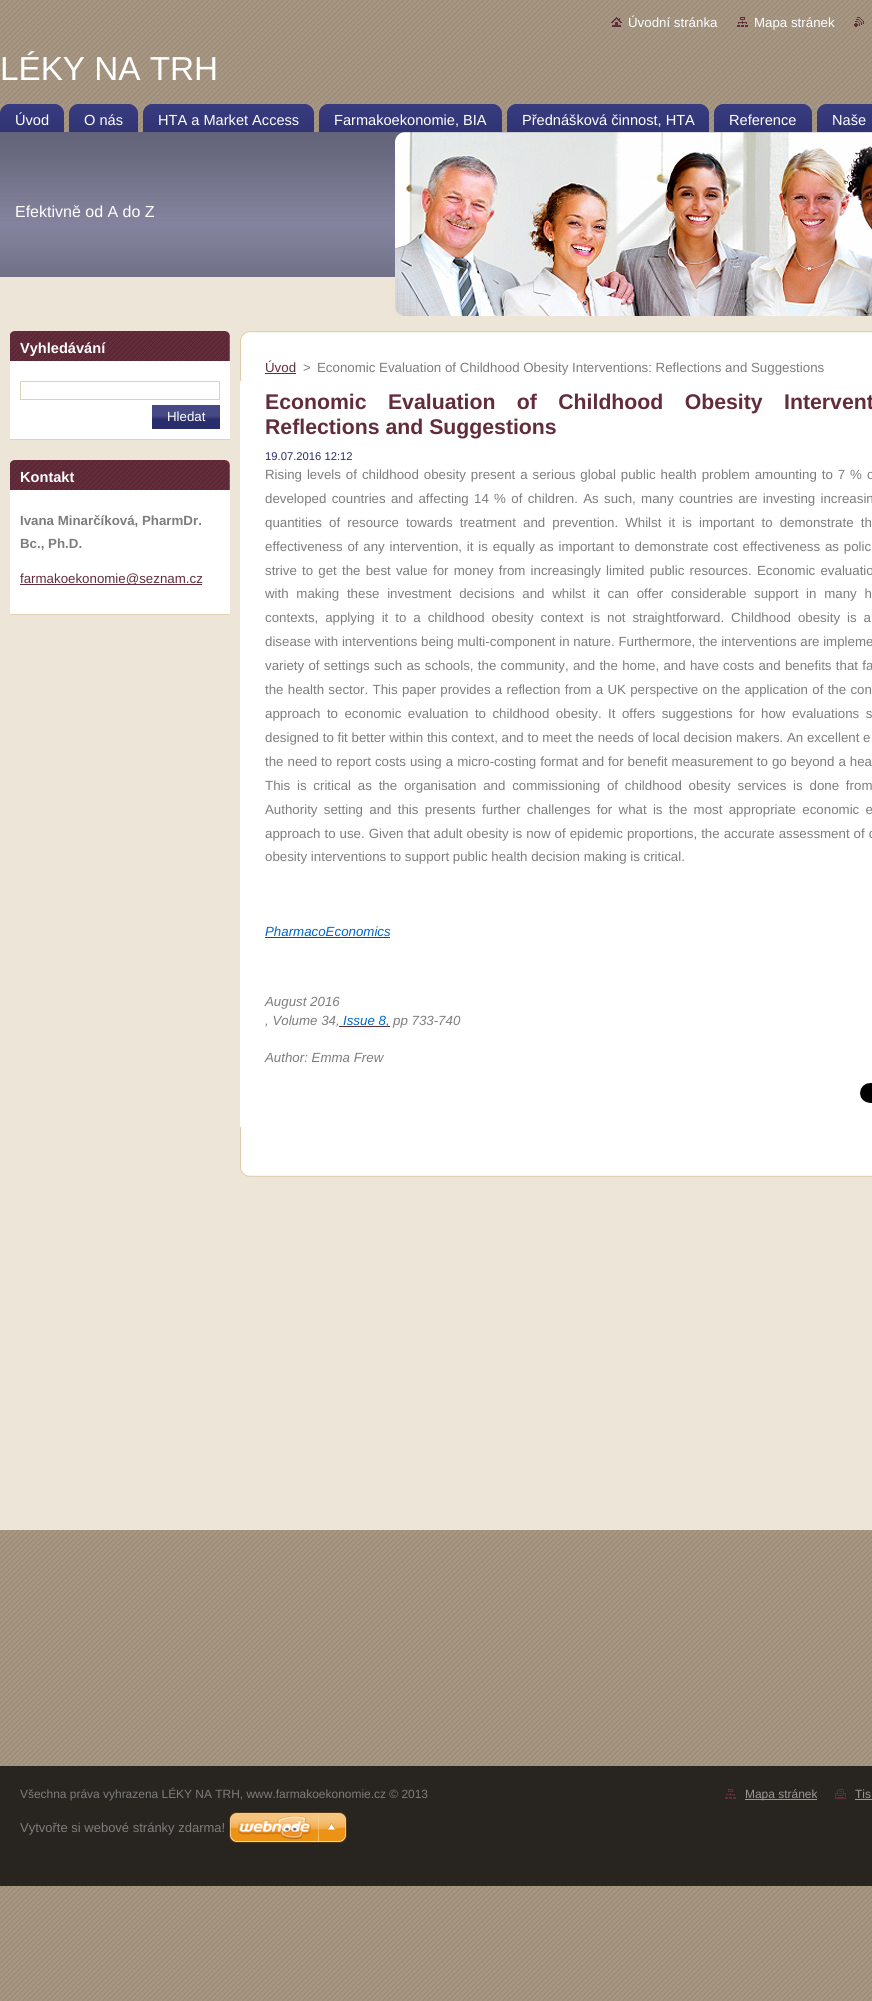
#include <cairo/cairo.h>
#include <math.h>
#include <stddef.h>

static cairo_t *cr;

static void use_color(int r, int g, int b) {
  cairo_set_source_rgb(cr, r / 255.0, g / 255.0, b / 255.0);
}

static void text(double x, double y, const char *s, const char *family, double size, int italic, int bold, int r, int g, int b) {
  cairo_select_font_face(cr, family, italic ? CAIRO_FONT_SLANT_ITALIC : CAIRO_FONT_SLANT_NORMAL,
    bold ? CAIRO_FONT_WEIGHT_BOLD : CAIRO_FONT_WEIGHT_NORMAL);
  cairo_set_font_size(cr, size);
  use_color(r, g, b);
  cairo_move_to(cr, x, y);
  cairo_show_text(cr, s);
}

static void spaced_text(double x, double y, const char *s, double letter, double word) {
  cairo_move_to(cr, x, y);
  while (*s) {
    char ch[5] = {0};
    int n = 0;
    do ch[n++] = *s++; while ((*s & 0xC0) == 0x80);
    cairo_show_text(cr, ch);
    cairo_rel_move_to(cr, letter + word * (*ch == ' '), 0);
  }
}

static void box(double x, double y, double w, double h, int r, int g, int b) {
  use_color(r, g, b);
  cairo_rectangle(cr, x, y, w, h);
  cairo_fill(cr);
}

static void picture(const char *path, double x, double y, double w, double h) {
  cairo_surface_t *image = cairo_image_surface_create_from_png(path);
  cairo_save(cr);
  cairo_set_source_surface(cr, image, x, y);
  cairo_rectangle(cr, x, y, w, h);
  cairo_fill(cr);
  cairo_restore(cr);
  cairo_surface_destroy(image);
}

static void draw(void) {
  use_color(255, 255, 255);
  cairo_paint(cr);
  picture("img_01.png", 0, 0, 872, 2001);
  box(0, 1192, 872, 338, 237, 229, 215);
  picture("img_02.png", 611, 17, 11, 10);
  picture("img_03.png", 737, 17, 11, 10);
  picture("img_04.png", 854, 17, 10, 10);
  picture("img_05.png", 0, 104, 64, 28);
  picture("img_06.png", 0, 104, 8, 8);
  picture("img_07.png", 56, 104, 8, 8);
  picture("img_08.png", 69, 104, 69, 28);
  picture("img_06.png", 69, 104, 8, 8);
  picture("img_07.png", 130, 104, 8, 8);
  picture("img_09.png", 143, 104, 171, 28);
  picture("img_06.png", 143, 104, 8, 8);
  picture("img_07.png", 306, 104, 8, 8);
  picture("img_10.png", 319, 104, 183, 28);
  picture("img_06.png", 319, 104, 8, 8);
  picture("img_07.png", 494, 104, 8, 8);
  picture("img_11.png", 507, 104, 202, 28);
  picture("img_06.png", 507, 104, 8, 8);
  picture("img_07.png", 701, 104, 8, 8);
  picture("img_12.png", 714, 104, 98, 28);
  picture("img_06.png", 714, 104, 8, 8);
  picture("img_07.png", 804, 104, 8, 8);
  picture("img_13.png", 817, 104, 55, 28);
  picture("img_06.png", 817, 104, 8, 8);
  picture("img_14.png", 0, 132, 872, 184);
  box(0, 316, 872, 876, 237, 229, 216);
  box(10, 361, 220, 78, 255, 255, 255);
  box(10, 439, 220, 1, 225, 209, 181);
  picture("img_15.png", 10, 331, 220, 30);
  cairo_rectangle(cr, 20.5, 381.5, 199, 18);
  cairo_set_line_width(cr, 1);
  cairo_stroke(cr);
  picture("img_16.png", 152, 405, 68, 24);
  box(10, 490, 220, 124, 255, 255, 255);
  box(10, 614, 220, 1, 225, 209, 181);
  picture("img_15.png", 10, 460, 220, 30);
  box(20, 584, 182, 1, 99, 44, 59);
  picture("img_17.png", 240, 331, 632, 50);
  picture("img_18.png", 240, 1127, 632, 50);
  box(240, 381, 632, 746, 255, 255, 255);
  box(265, 373, 31, 1, 99, 44, 59);
  box(265, 937, 125, 1, 99, 44, 59);
  box(339, 1026, 51, 1, 99, 44, 59);
  picture("img_19.png", 860, 1083, 12, 20);
  box(0, 1766, 872, 120, 40, 36, 31);
  picture("img_20.png", 725, 1789, 11, 10);
  box(745, 1799, 72, 1, 153, 153, 153);
  picture("img_21.png", 835, 1789, 11, 10);
  box(855, 1799, 17, 1, 153, 153, 153);
  picture("img_22.png", 229, 1812, 118, 31);
  text(628, 27, "Úvodní stránka", "Liberation Sans", 13.3, 0, 0, 255, 255, 255);
  text(754, 27, "Mapa stránek", "Liberation Sans", 13.3, 0, 0, 255, 255, 255);
  text(0, 80, "LÉKY NA TRH", "Liberation Sans", 33.25, 0, 0, 255, 255, 255);
  text(15, 125, "Úvod", "Liberation Sans", 14.6, 0, 0, 255, 255, 255);
  text(84, 125, "O nás", "Liberation Sans", 14.6, 0, 0, 255, 255, 255);
  text(158, 125, "HTA a Market Access", "Liberation Sans", 14.6, 0, 0, 255, 255, 255);
  text(334, 125, "Farmakoekonomie, BIA", "Liberation Sans", 14.6, 0, 0, 255, 255, 255);
  text(522, 125, "Přednášková činnost, HTA", "Liberation Sans", 14.6, 0, 0, 255, 255, 255);
  text(729, 125, "Reference", "Liberation Sans", 14.6, 0, 0, 255, 255, 255);
  text(832, 125, "Naše", "Liberation Sans", 14.6, 0, 0, 255, 255, 255);
  text(15, 217, "Efektivně od A do Z", "Liberation Sans", 16, 0, 0, 255, 255, 255);
  text(20, 353, "Vyhledávání", "Liberation Sans", 14.6, 0, 1, 255, 255, 255);
  text(167, 421, "Hledat", "Liberation Sans", 13.3, 0, 0, 255, 255, 255);
  text(20, 482, "Kontakt", "Liberation Sans", 14.6, 0, 1, 255, 255, 255);
  text(20, 525, "Ivana Minarčíková, PharmDr.", "Liberation Sans", 13.3, 0, 1, 125, 125, 125);
  text(20, 548, "Bc., Ph.D.", "Liberation Sans", 13.3, 0, 1, 125, 125, 125);
  text(20, 583, "farmakoekonomie@seznam.cz", "Liberation Sans", 13.3, 0, 0, 99, 44, 59);
  text(265, 372, "Úvod", "Liberation Sans", 13.3, 0, 0, 99, 44, 59);
  text(303, 372, ">", "Liberation Sans", 13.3, 0, 0, 125, 125, 125);
  text(317, 372, "Economic Evaluation of Childhood Obesity Interventions: Reflections and Suggestions", "Liberation Sans", 13.3, 0, 0, 125, 125, 125);
  cairo_select_font_face(cr, "Liberation Sans", CAIRO_FONT_SLANT_NORMAL, CAIRO_FONT_WEIGHT_BOLD);
  cairo_set_font_size(cr, 21.25);
  use_color(99, 44, 59);
  spaced_text(265, 409, "Economic Evaluation of Childhood Obesity Intervent", 0, 15.5);
  text(265, 434, "Reflections and Suggestions", "Liberation Sans", 21.25, 0, 1, 99, 44, 59);
  text(265, 460, "19.07.2016 12:12", "Liberation Sans", 11.25, 0, 0, 42, 45, 108);
  cairo_set_font_size(cr, 13.3);
  use_color(125, 125, 125);
  spaced_text(265, 479, "Rising levels of childhood obesity present a serious global public health problem amounting to 7 % o", 0, 1.25);
  spaced_text(265, 503, "developed countries and affecting 14 % of children. As such, many countries are investing increasin", 0, 1.6);
  spaced_text(265, 527, "quantities of resource towards treatment and prevention. Whilst it is important to demonstrate th", 0, 3.4);
  spaced_text(265, 551, "effectiveness of any intervention, it is equally as important to demonstrate cost effectiveness as polic", 0, 1.1);
  spaced_text(265, 575, "strive to get the best value for money from increasingly limited public resources. Economic evaluatio", 0, 1.5);
  spaced_text(265, 598, "with making these investment decisions and whilst it can offer considerable support in many h", 0, 4);
  spaced_text(265, 622, "contexts, applying it to a childhood obesity context is not straightforward. Childhood obesity is a", 0, 3.25);
  text(265, 646, "disease with interventions being multi-component in nature. Furthermore, the interventions are impleme", "Liberation Sans", 13.3, 0, 0, 125, 125, 125);
  spaced_text(265, 670, "variety of settings such as schools, the community, and the home, and have costs and benefits that fa", 0, 0.6);
  spaced_text(265, 694, "the health sector. This paper provides a reflection from a UK perspective on the application of the con", 0, 0.6);
  spaced_text(265, 718, "approach to economic evaluation to childhood obesity. It offers suggestions for how evaluations s", 0, 2.75);
  text(265, 742, "designed to fit better within this context, and to meet the needs of local decision makers. An excellent e", "Liberation Sans", 13.3, 0, 0, 125, 125, 125);
  spaced_text(265, 766, "the need to report costs using a micro-costing format and for benefit measurement to go beyond a hea", 0, 0.3);
  spaced_text(265, 790, "This is critical as the organisation and commissioning of childhood obesity services is done from", 0, 3.1);
  spaced_text(265, 814, "Authority setting and this presents further challenges for what is the most appropriate economic e", 0, 2.6);
  spaced_text(265, 838, "approach to use. Given that adult obesity is now of epidemic proportions, the accurate assessment of c", 0, 0.3);
  text(265, 861, "obesity interventions to support public health decision making is critical.", "Liberation Sans", 13.3, 0, 0, 125, 125, 125);
  text(265, 936, "PharmacoEconomics", "Liberation Sans", 13.3, 1, 0, 0, 102, 204);
  text(265, 1006, "August 2016", "Liberation Sans", 13.3, 1, 0, 125, 125, 125);
  text(265, 1025, ", Volume 34,", "Liberation Sans", 13.3, 1, 0, 125, 125, 125);
  text(343, 1025, "Issue 8,", "Liberation Sans", 13.3, 1, 0, 0, 102, 204);
  text(393, 1025, "pp 733-740", "Liberation Sans", 13.3, 1, 0, 125, 125, 125);
  text(265, 1062, "Author: Emma Frew", "Liberation Sans", 13.3, 1, 0, 125, 125, 125);
  text(20, 1798, "Všechna práva vyhrazena LÉKY NA TRH, www.farmakoekonomie.cz © 2013", "Liberation Sans", 11.95, 0, 0, 125, 125, 125);
  text(745, 1798, "Mapa stránek", "Liberation Sans", 11.95, 0, 0, 153, 153, 153);
  text(855, 1798, "Tis", "Liberation Sans", 11.95, 0, 0, 153, 153, 153);
  text(20, 1832, "Vytvořte si webové stránky zdarma!", "Liberation Sans", 13, 0, 0, 125, 125, 125);
}

int main(void) {
  cairo_surface_t *surface = cairo_image_surface_create(CAIRO_FORMAT_RGB24, 872, 2001);
  cr = cairo_create(surface);
  cairo_font_options_t *options = cairo_font_options_create();
  cairo_font_options_set_hint_metrics(options, CAIRO_HINT_METRICS_OFF);
  cairo_font_options_set_hint_style(options, CAIRO_HINT_STYLE_NONE);
  cairo_set_font_options(cr, options);
  cairo_set_miter_limit(cr, 4);
  draw();
  cairo_surface_write_to_png(surface, "out.png");
  cairo_font_options_destroy(options);
  cairo_destroy(cr);
  cairo_surface_destroy(surface);
  return 0;
}
